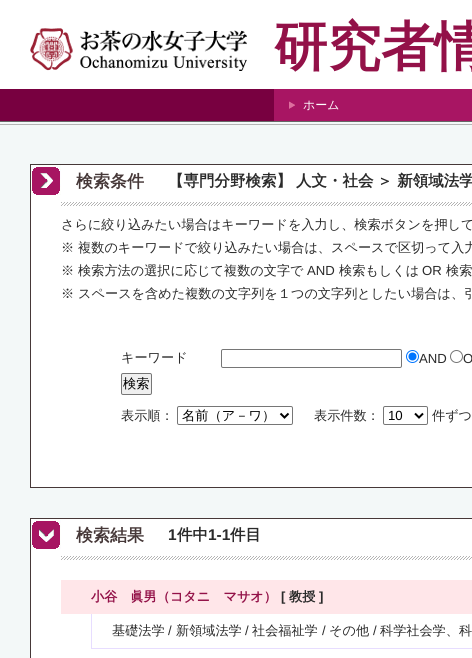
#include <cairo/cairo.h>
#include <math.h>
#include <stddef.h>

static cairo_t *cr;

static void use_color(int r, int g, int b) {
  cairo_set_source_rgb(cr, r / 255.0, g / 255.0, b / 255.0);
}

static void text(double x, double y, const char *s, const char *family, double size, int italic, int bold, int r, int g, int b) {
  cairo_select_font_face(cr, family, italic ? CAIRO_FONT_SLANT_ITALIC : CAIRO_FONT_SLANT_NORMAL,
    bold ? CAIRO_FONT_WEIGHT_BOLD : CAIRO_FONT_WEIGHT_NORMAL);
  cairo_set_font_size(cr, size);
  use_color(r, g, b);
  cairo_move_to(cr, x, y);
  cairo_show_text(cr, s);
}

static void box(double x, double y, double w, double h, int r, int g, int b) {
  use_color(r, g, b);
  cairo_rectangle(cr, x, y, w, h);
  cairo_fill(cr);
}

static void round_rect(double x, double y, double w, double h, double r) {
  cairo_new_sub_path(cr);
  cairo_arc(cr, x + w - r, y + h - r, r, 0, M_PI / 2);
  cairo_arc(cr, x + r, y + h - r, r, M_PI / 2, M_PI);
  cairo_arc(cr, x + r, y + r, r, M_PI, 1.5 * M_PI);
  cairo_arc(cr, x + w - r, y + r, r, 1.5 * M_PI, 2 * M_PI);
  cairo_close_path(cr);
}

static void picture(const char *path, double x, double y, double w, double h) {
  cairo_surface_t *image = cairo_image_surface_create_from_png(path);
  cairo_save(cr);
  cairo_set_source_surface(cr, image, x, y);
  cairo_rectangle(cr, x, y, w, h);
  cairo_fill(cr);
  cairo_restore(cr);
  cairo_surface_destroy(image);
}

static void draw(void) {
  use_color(243, 248, 248);
  cairo_paint(cr);
  picture("img_01.png", 0, 0, 472, 125);
  picture("img_02.png", 30, 28, 217, 43);
  box(274, 89, 151, 32, 168, 21, 99);
  picture("img_03.png", 289, 101, 6, 8);
  use_color(255, 255, 255);
  cairo_rectangle(cr, 30.5, 164.5, 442, 323);
  cairo_fill_preserve(cr);
  use_color(70, 56, 56);
  cairo_set_line_width(cr, 1);
  cairo_stroke(cr);
  picture("img_04.png", 31, 165, 30, 30);
  picture("img_05.png", 61, 202, 411, 4);
  round_rect(221.5, 349.5, 180, 18, 1.5);
  use_color(118, 118, 118);
  cairo_stroke(cr);
  cairo_arc(cr, 412.5, 356.5, 6, 0, 2 * M_PI);
  use_color(0, 117, 255);
  cairo_stroke(cr);
  cairo_arc(cr, 412.5, 356.5, 4, 0, 2 * M_PI);
  cairo_fill(cr);
  cairo_arc(cr, 456.5, 356.5, 6, 0, 2 * M_PI);
  use_color(118, 118, 118);
  cairo_stroke(cr);
  use_color(239, 239, 239);
  round_rect(121.5, 373.5, 30, 21, 1.5);
  cairo_fill_preserve(cr);
  use_color(118, 118, 118);
  cairo_stroke(cr);
  round_rect(177.5, 406.5, 115, 18, 1.5);
  cairo_stroke(cr);
  cairo_new_path(cr);
  cairo_move_to(cr, 280.5, 413.5);
  cairo_line_to(cr, 284.5, 417.5);
  cairo_line_to(cr, 288.5, 413.5);
  use_color(0, 0, 0);
  cairo_set_line_width(cr, 2);
  cairo_stroke(cr);
  round_rect(383.5, 406.5, 44, 18, 1.5);
  use_color(118, 118, 118);
  cairo_set_line_width(cr, 1);
  cairo_stroke(cr);
  cairo_new_path(cr);
  cairo_move_to(cr, 415, 413.5);
  cairo_line_to(cr, 419, 417.5);
  cairo_line_to(cr, 423, 413.5);
  use_color(0, 0, 0);
  cairo_set_line_width(cr, 2);
  cairo_stroke(cr);
  use_color(255, 255, 255);
  cairo_rectangle(cr, 30.5, 518.5, 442, 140);
  cairo_fill_preserve(cr);
  use_color(70, 56, 56);
  cairo_set_line_width(cr, 1);
  cairo_stroke(cr);
  picture("img_06.png", 31, 520, 30, 29);
  picture("img_05.png", 61, 556, 411, 4);
  box(61, 580, 411, 34, 255, 230, 233);
  box(91, 648, 381, 1, 231, 221, 255);
  box(91, 614, 1, 35, 231, 221, 255);
  text(274, 65, "研究者情", "WenQuanYi Zen Hei", 53.5, 0, 1, 147, 17, 72);
  text(303, 109, "ホーム", "WenQuanYi Zen Hei Medium", 12, 0, 0, 255, 255, 255);
  text(76, 187, "検索条件", "WenQuanYi Zen Hei", 17, 0, 1, 70, 56, 56);
  text(168, 186, "【専門分野検索】", "WenQuanYi Zen Hei", 15.5, 0, 1, 42, 42, 42);
  text(296, 186, "人文・社会", "WenQuanYi Zen Hei", 15.5, 0, 1, 42, 42, 42);
  text(377, 186, "＞ 新領域法学", "WenQuanYi Zen Hei", 15.5, 0, 1, 42, 42, 42);
  text(61, 229, "さらに絞り込みたい場合はキーワードを入力し、検索ボタンを押して", "WenQuanYi Zen Hei Medium", 13.15, 0, 0, 42, 42, 42);
  text(61, 252, "※ 複数のキーワードで絞り込みたい場合は、スペースで区切って入力", "WenQuanYi Zen Hei Medium", 13.15, 0, 0, 42, 42, 42);
  text(61, 275, "※ 検索方法の選択に応じて複数の文字で", "WenQuanYi Zen Hei Medium", 13.15, 0, 0, 42, 42, 42);
  text(307, 275, "AND", "Liberation Sans", 13.15, 0, 0, 42, 42, 42);
  text(339, 275, "検索もしくは", "WenQuanYi Zen Hei Medium", 13.15, 0, 0, 42, 42, 42);
  text(422, 275, "OR", "Liberation Sans", 13.15, 0, 0, 42, 42, 42);
  text(446, 275, "検索", "WenQuanYi Zen Hei Medium", 13.15, 0, 0, 42, 42, 42);
  text(61, 298, "※ スペースを含めた複数の文字列を１つの文字列としたい場合は、引", "WenQuanYi Zen Hei Medium", 13.15, 0, 0, 42, 42, 42);
  text(121, 362, "キーワード", "WenQuanYi Zen Hei Medium", 13.15, 0, 0, 42, 42, 42);
  text(419, 363, "AND", "Liberation Sans", 13.15, 0, 0, 42, 42, 42);
  text(463, 363, "O", "Liberation Sans", 13.15, 0, 0, 42, 42, 42);
  text(123, 388, "検索", "WenQuanYi Zen Hei Medium", 13.25, 0, 0, 0, 0, 0);
  text(121, 420, "表示順：", "WenQuanYi Zen Hei Medium", 13.15, 0, 0, 42, 42, 42);
  text(182, 420, "名前（ア－ワ）", "WenQuanYi Zen Hei Medium", 13.25, 0, 0, 0, 0, 0);
  text(314, 420, "表示件数：", "WenQuanYi Zen Hei Medium", 13.15, 0, 0, 42, 42, 42);
  text(388, 420, "10", "Liberation Sans", 13.25, 0, 0, 0, 0, 0);
  text(432, 420, "件ずつ", "WenQuanYi Zen Hei Medium", 13.15, 0, 0, 42, 42, 42);
  text(76, 541, "検索結果", "WenQuanYi Zen Hei", 17, 0, 1, 70, 56, 56);
  text(168, 540, "1", "Liberation Sans", 15.5, 0, 1, 42, 42, 42);
  text(177, 540, "件中", "WenQuanYi Zen Hei", 15.5, 0, 1, 42, 42, 42);
  text(208, 540, "1-1", "Liberation Sans", 15.5, 0, 1, 42, 42, 42);
  text(230, 540, "件目", "WenQuanYi Zen Hei", 15.5, 0, 1, 42, 42, 42);
  text(91, 601, "小谷　眞男（コタニ　マサオ）", "WenQuanYi Zen Hei", 13.15, 0, 1, 147, 17, 72);
  text(281, 601, "[", "Liberation Sans", 13.15, 0, 1, 42, 42, 42);
  text(289, 601, "教授", "WenQuanYi Zen Hei", 13.15, 0, 1, 42, 42, 42);
  text(319, 601, "]", "Liberation Sans", 13.15, 0, 1, 42, 42, 42);
  text(112, 635, "基礎法学", "WenQuanYi Zen Hei Medium", 13.15, 0, 0, 42, 42, 42);
  text(168, 635, "/", "Liberation Sans", 13.15, 0, 0, 42, 42, 42);
  text(176, 635, "新領域法学", "WenQuanYi Zen Hei Medium", 13.15, 0, 0, 42, 42, 42);
  text(245, 635, "/", "Liberation Sans", 13.15, 0, 0, 42, 42, 42);
  text(252, 635, "社会福祉学", "WenQuanYi Zen Hei Medium", 13.15, 0, 0, 42, 42, 42);
  text(322, 635, "/", "Liberation Sans", 13.15, 0, 0, 42, 42, 42);
  text(329, 635, "その他", "WenQuanYi Zen Hei Medium", 13.15, 0, 0, 42, 42, 42);
  text(373, 635, "/", "Liberation Sans", 13.15, 0, 0, 42, 42, 42);
  text(380, 635, "科学社会学、科", "WenQuanYi Zen Hei Medium", 13.15, 0, 0, 42, 42, 42);
}

int main(void) {
  cairo_surface_t *surface = cairo_image_surface_create(CAIRO_FORMAT_RGB24, 472, 658);
  cr = cairo_create(surface);
  cairo_font_options_t *options = cairo_font_options_create();
  cairo_font_options_set_hint_metrics(options, CAIRO_HINT_METRICS_OFF);
  cairo_font_options_set_hint_style(options, CAIRO_HINT_STYLE_NONE);
  cairo_set_font_options(cr, options);
  cairo_set_miter_limit(cr, 4);
  draw();
  cairo_surface_write_to_png(surface, "out.png");
  cairo_font_options_destroy(options);
  cairo_destroy(cr);
  cairo_surface_destroy(surface);
  return 0;
}
